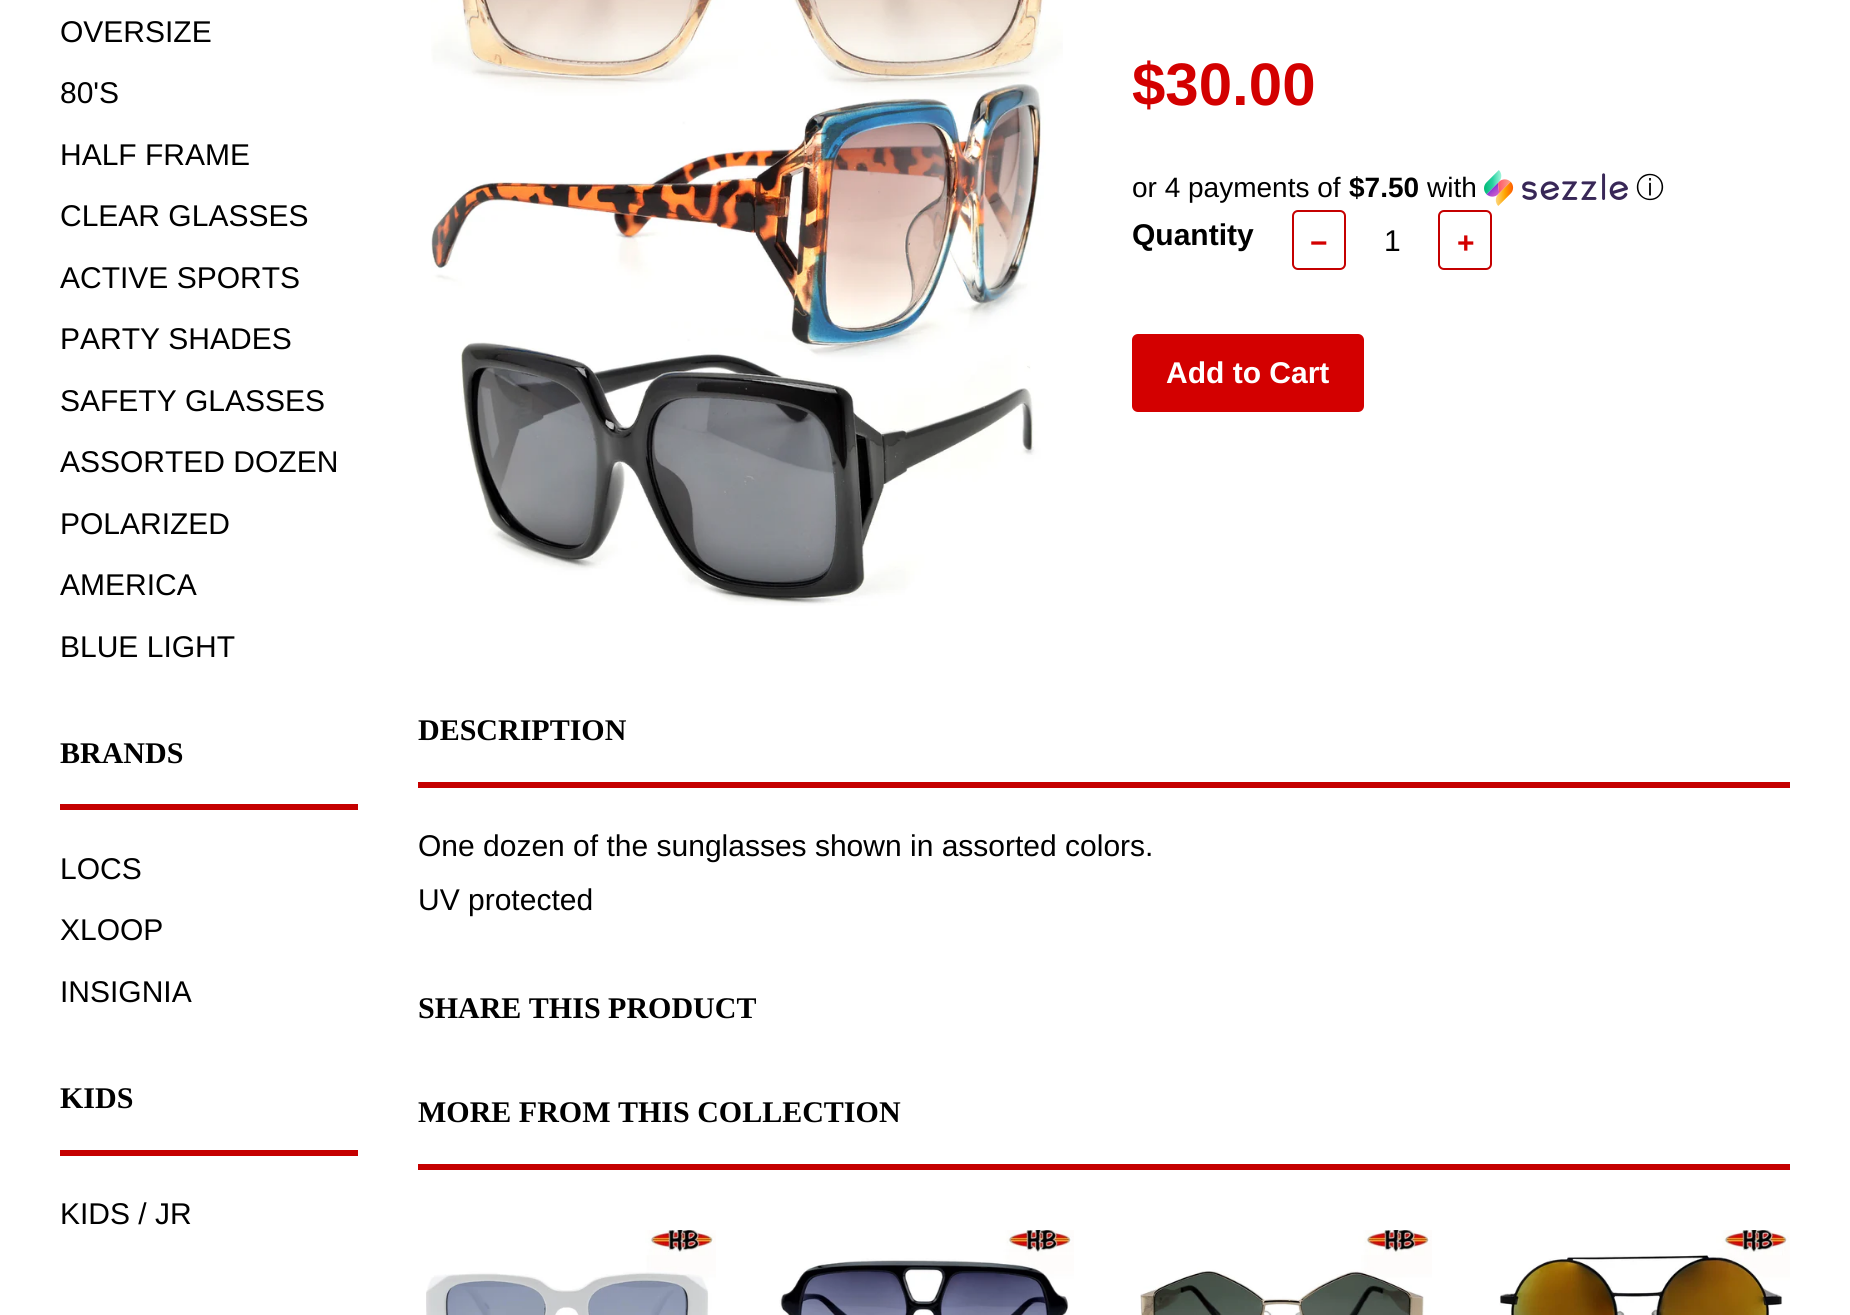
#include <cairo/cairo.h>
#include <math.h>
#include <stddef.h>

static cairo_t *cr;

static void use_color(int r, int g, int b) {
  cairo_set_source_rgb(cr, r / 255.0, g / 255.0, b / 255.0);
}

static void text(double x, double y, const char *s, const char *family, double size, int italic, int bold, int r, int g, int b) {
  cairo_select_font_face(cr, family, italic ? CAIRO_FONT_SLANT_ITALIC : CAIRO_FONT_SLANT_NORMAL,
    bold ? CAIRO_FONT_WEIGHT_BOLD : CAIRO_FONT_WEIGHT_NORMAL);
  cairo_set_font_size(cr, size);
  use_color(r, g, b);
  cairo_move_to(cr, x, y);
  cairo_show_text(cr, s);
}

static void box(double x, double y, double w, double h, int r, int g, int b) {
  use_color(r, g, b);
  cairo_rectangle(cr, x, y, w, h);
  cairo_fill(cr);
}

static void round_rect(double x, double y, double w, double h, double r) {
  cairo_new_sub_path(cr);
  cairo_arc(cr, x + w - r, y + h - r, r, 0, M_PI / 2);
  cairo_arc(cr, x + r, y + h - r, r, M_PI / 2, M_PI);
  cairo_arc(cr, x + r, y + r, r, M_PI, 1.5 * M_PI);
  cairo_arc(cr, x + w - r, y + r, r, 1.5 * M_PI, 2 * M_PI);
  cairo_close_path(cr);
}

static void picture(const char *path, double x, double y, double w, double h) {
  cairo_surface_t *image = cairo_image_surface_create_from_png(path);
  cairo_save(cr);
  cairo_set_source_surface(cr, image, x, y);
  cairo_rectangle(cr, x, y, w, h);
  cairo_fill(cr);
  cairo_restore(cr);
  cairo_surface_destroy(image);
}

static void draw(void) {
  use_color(255, 255, 255);
  cairo_paint(cr);
  box(60, 804, 298, 6, 197, 0, 0);
  box(60, 1150, 298, 6, 197, 0, 0);
  picture("img_01.png", 431, 0, 632, 606);
  picture("img_02.png", 1484, 170, 144, 36);
  round_rect(1293, 211, 52, 58, 5);
  cairo_stroke(cr);
  round_rect(1439, 211, 52, 58, 5);
  cairo_stroke(cr);
  use_color(211, 0, 0);
  round_rect(1132, 334, 232, 78, 6);
  cairo_fill(cr);
  box(418, 782, 1372, 6, 197, 0, 0);
  box(418, 1164, 1372, 6, 197, 0, 0);
  picture("img_03.png", 426, 1230, 290, 85);
  picture("img_04.png", 779, 1230, 295, 85);
  picture("img_05.png", 1140, 1230, 292, 85);
  picture("img_06.png", 1499, 1230, 291, 85);
  text(60, 42, "OVERSIZE", "Liberation Sans", 30, 0, 0, 0, 0, 0);
  text(60, 103, "80'S", "Liberation Sans", 30, 0, 0, 0, 0, 0);
  text(60, 165, "HALF FRAME", "Liberation Sans", 30, 0, 0, 0, 0, 0);
  text(60, 226, "CLEAR GLASSES", "Liberation Sans", 30, 0, 0, 0, 0, 0);
  text(60, 288, "ACTIVE SPORTS", "Liberation Sans", 30, 0, 0, 0, 0, 0);
  text(60, 349, "PARTY SHADES", "Liberation Sans", 30, 0, 0, 0, 0, 0);
  text(60, 411, "SAFETY GLASSES", "Liberation Sans", 30, 0, 0, 0, 0, 0);
  text(60, 472, "ASSORTED DOZEN", "Liberation Sans", 30, 0, 0, 0, 0, 0);
  text(60, 534, "POLARIZED", "Liberation Sans", 30, 0, 0, 0, 0, 0);
  text(60, 595, "AMERICA", "Liberation Sans", 30, 0, 0, 0, 0, 0);
  text(60, 657, "BLUE LIGHT", "Liberation Sans", 30, 0, 0, 0, 0, 0);
  text(60, 763, "BRANDS", "Liberation Serif", 30, 0, 1, 0, 0, 0);
  text(60, 879, "LOCS", "Liberation Sans", 30, 0, 0, 0, 0, 0);
  text(60, 940, "XLOOP", "Liberation Sans", 30, 0, 0, 0, 0, 0);
  text(60, 1002, "INSIGNIA", "Liberation Sans", 30, 0, 0, 0, 0, 0);
  text(60, 1108, "KIDS", "Liberation Serif", 30, 0, 1, 0, 0, 0);
  text(60, 1224, "KIDS / JR", "Liberation Sans", 30, 0, 0, 0, 0, 0);
  text(1132, 105, "$30.00", "Liberation Sans", 60, 0, 1, 211, 0, 0);
  text(1132, 197, "or 4 payments of", "Liberation Sans", 28, 0, 0, 0, 0, 0);
  text(1349, 197, "$7.50", "Liberation Sans", 28, 0, 1, 0, 0, 0);
  text(1427, 197, "with", "Liberation Sans", 28, 0, 0, 0, 0, 0);
  text(1636, 197, "ⓘ", "WenQuanYi Zen Hei Medium", 28, 0, 0, 0, 0, 0);
  text(1132, 245, "Quantity", "Liberation Sans", 30, 0, 1, 0, 0, 0);
  text(1310, 253, "−", "Liberation Sans", 30, 0, 1, 211, 0, 0);
  text(1384, 251, "1", "Liberation Sans", 30, 0, 0, 0, 0, 0);
  text(1457, 253, "+", "Liberation Sans", 30, 0, 1, 211, 0, 0);
  text(1166, 383, "Add to Cart", "Liberation Sans", 30, 0, 1, 255, 255, 255);
  text(418, 740, "DESCRIPTION", "Liberation Serif", 30, 0, 1, 0, 0, 0);
  text(418, 856, "One dozen of the sunglasses shown in assorted colors.", "Liberation Sans", 30, 0, 0, 0, 0, 0);
  text(418, 910, "UV protected", "Liberation Sans", 30, 0, 0, 0, 0, 0);
  text(418, 1018, "SHARE THIS PRODUCT", "Liberation Serif", 30, 0, 1, 0, 0, 0);
  text(418, 1122, "MORE FROM THIS COLLECTION", "Liberation Serif", 30, 0, 1, 0, 0, 0);
}

int main(void) {
  cairo_surface_t *surface = cairo_image_surface_create(CAIRO_FORMAT_RGB24, 1850, 1315);
  cr = cairo_create(surface);
  cairo_font_options_t *options = cairo_font_options_create();
  cairo_font_options_set_hint_metrics(options, CAIRO_HINT_METRICS_OFF);
  cairo_font_options_set_hint_style(options, CAIRO_HINT_STYLE_NONE);
  cairo_set_font_options(cr, options);
  cairo_set_miter_limit(cr, 4);
  draw();
  cairo_surface_write_to_png(surface, "out.png");
  cairo_font_options_destroy(options);
  cairo_destroy(cr);
  cairo_surface_destroy(surface);
  return 0;
}
